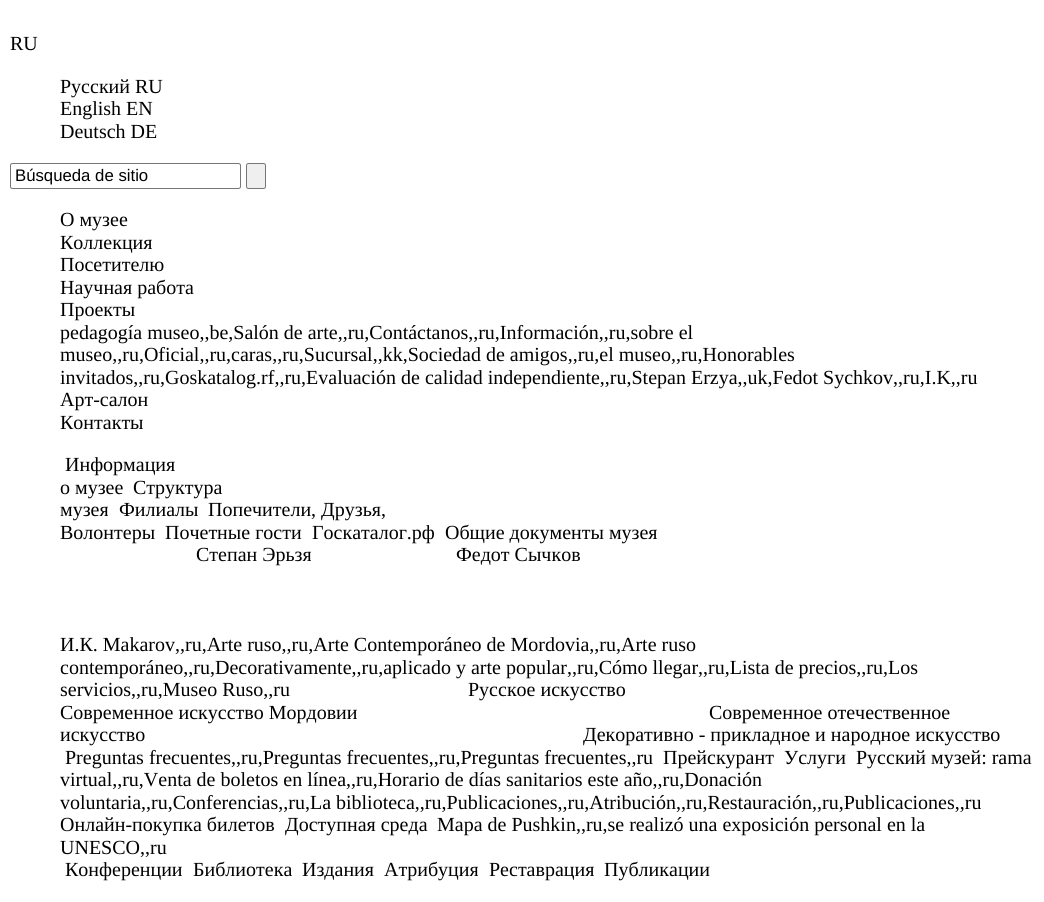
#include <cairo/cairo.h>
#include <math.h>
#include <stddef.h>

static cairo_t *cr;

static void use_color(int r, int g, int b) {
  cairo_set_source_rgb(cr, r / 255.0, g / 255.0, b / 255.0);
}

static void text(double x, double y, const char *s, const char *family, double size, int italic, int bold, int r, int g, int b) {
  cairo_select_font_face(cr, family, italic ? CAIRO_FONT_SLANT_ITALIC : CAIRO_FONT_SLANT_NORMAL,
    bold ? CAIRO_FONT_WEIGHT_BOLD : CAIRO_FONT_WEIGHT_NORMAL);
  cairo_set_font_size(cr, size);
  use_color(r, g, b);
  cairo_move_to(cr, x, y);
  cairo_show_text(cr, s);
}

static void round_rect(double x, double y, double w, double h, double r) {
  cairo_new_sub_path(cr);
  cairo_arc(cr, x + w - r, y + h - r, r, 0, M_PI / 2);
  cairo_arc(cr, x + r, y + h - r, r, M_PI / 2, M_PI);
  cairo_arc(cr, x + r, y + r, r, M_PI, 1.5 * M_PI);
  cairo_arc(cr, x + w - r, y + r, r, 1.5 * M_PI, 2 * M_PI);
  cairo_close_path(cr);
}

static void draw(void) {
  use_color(255, 255, 255);
  cairo_paint(cr);
  round_rect(10.5, 163.5, 230, 25, 2);
  use_color(118, 118, 118);
  cairo_set_line_width(cr, 1);
  cairo_stroke(cr);
  use_color(239, 239, 239);
  round_rect(246.5, 163.5, 19, 25, 2);
  cairo_fill_preserve(cr);
  use_color(118, 118, 118);
  cairo_stroke(cr);
  text(10, 50, "RU", "Liberation Serif", 20, 0, 0, 0, 0, 0);
  text(60, 93, "Русский RU", "Liberation Serif", 20, 0, 0, 0, 0, 0);
  text(60, 115, "English EN", "Liberation Serif", 20, 0, 0, 0, 0, 0);
  text(60, 138, "Deutsch DE", "Liberation Serif", 20, 0, 0, 0, 0, 0);
  text(15, 181, "Búsqueda de sitio", "Liberation Sans", 16.75, 0, 0, 0, 0, 0);
  text(60, 226, "О музее", "Liberation Serif", 20, 0, 0, 0, 0, 0);
  text(60, 249, "Коллекция", "Liberation Serif", 20, 0, 0, 0, 0, 0);
  text(60, 271, "Посетителю", "Liberation Serif", 20, 0, 0, 0, 0, 0);
  text(60, 294, "Научная работа", "Liberation Serif", 20, 0, 0, 0, 0, 0);
  text(60, 316, "Проекты", "Liberation Serif", 20, 0, 0, 0, 0, 0);
  text(60, 339, "pedagogía museo,,be,Salón de arte,,ru,Contáctanos,,ru,Información,,ru,sobre el", "Liberation Serif", 20, 0, 0, 0, 0, 0);
  text(60, 361, "museo,,ru,Oficial,,ru,caras,,ru,Sucursal,,kk,Sociedad de amigos,,ru,el museo,,ru,Honorables", "Liberation Serif", 20, 0, 0, 0, 0, 0);
  text(60, 384, "invitados,,ru,Goskatalog.rf,,ru,Evaluación de calidad independiente,,ru,Stepan Erzya,,uk,Fedot Sychkov,,ru,I.K,,ru", "Liberation Serif", 20, 0, 0, 0, 0, 0);
  text(60, 406, "Арт-салон", "Liberation Serif", 20, 0, 0, 0, 0, 0);
  text(60, 429, "Контакты", "Liberation Serif", 20, 0, 0, 0, 0, 0);
  text(65, 471, "Информация", "Liberation Serif", 20, 0, 0, 0, 0, 0);
  text(60, 494, "о музее", "Liberation Serif", 20, 0, 0, 0, 0, 0);
  text(133, 494, "Структура", "Liberation Serif", 20, 0, 0, 0, 0, 0);
  text(60, 516, "музея", "Liberation Serif", 20, 0, 0, 0, 0, 0);
  text(119, 516, "Филиалы", "Liberation Serif", 20, 0, 0, 0, 0, 0);
  text(208, 516, "Попечители, Друзья,", "Liberation Serif", 20, 0, 0, 0, 0, 0);
  text(60, 539, "Волонтеры", "Liberation Serif", 20, 0, 0, 0, 0, 0);
  text(165, 539, "Почетные гости", "Liberation Serif", 20, 0, 0, 0, 0, 0);
  text(312, 539, "Госкаталог.рф", "Liberation Serif", 20, 0, 0, 0, 0, 0);
  text(445, 539, "Общие документы музея", "Liberation Serif", 20, 0, 0, 0, 0, 0);
  text(196, 561, "Степан Эрьзя", "Liberation Serif", 20, 0, 0, 0, 0, 0);
  text(456, 561, "Федот Сычков", "Liberation Serif", 20, 0, 0, 0, 0, 0);
  text(60, 651, "И.К. Makarov,,ru,Arte ruso,,ru,Arte Contemporáneo de Mordovia,,ru,Arte ruso", "Liberation Serif", 20, 0, 0, 0, 0, 0);
  text(60, 674, "contemporáneo,,ru,Decorativamente,,ru,aplicado y arte popular,,ru,Cómo llegar,,ru,Lista de precios,,ru,Los", "Liberation Serif", 20, 0, 0, 0, 0, 0);
  text(60, 696, "servicios,,ru,Museo Ruso,,ru", "Liberation Serif", 20, 0, 0, 0, 0, 0);
  text(468, 696, "Русское искусство", "Liberation Serif", 20, 0, 0, 0, 0, 0);
  text(60, 719, "Современное искусство Мордовии", "Liberation Serif", 20, 0, 0, 0, 0, 0);
  text(709, 719, "Современное отечественное", "Liberation Serif", 20, 0, 0, 0, 0, 0);
  text(60, 741, "искусство", "Liberation Serif", 20, 0, 0, 0, 0, 0);
  text(583, 741, "Декоративно - прикладное и народное искусство", "Liberation Serif", 20, 0, 0, 0, 0, 0);
  text(65, 764, "Preguntas frecuentes,,ru,Preguntas frecuentes,,ru,Preguntas frecuentes,,ru", "Liberation Serif", 20, 0, 0, 0, 0, 0);
  text(663, 764, "Прейскурант", "Liberation Serif", 20, 0, 0, 0, 0, 0);
  text(784, 764, "Услуги", "Liberation Serif", 20, 0, 0, 0, 0, 0);
  text(856, 764, "Русский музей: rama", "Liberation Serif", 20, 0, 0, 0, 0, 0);
  text(60, 786, "virtual,,ru,Venta de boletos en línea,,ru,Horario de días sanitarios este año,,ru,Donación", "Liberation Serif", 20, 0, 0, 0, 0, 0);
  text(60, 809, "voluntaria,,ru,Conferencias,,ru,La biblioteca,,ru,Publicaciones,,ru,Atribución,,ru,Restauración,,ru,Publicaciones,,ru", "Liberation Serif", 20, 0, 0, 0, 0, 0);
  text(60, 831, "Онлайн-покупка билетов", "Liberation Serif", 20, 0, 0, 0, 0, 0);
  text(285, 831, "Доступная среда", "Liberation Serif", 20, 0, 0, 0, 0, 0);
  text(437, 831, "Mapa de Pushkin,,ru,se realizó una exposición personal en la", "Liberation Serif", 20, 0, 0, 0, 0, 0);
  text(60, 854, "UNESCO,,ru", "Liberation Serif", 20, 0, 0, 0, 0, 0);
  text(65, 876, "Конференции", "Liberation Serif", 20, 0, 0, 0, 0, 0);
  text(193, 876, "Библиотека", "Liberation Serif", 20, 0, 0, 0, 0, 0);
  text(302, 876, "Издания", "Liberation Serif", 20, 0, 0, 0, 0, 0);
  text(384, 876, "Атрибуция", "Liberation Serif", 20, 0, 0, 0, 0, 0);
  text(489, 876, "Реставрация", "Liberation Serif", 20, 0, 0, 0, 0, 0);
  text(604, 876, "Публикации", "Liberation Serif", 20, 0, 0, 0, 0, 0);
}

int main(void) {
  cairo_surface_t *surface = cairo_image_surface_create(CAIRO_FORMAT_RGB24, 1044, 902);
  cr = cairo_create(surface);
  cairo_font_options_t *options = cairo_font_options_create();
  cairo_font_options_set_hint_metrics(options, CAIRO_HINT_METRICS_OFF);
  cairo_font_options_set_hint_style(options, CAIRO_HINT_STYLE_NONE);
  cairo_set_font_options(cr, options);
  cairo_set_miter_limit(cr, 4);
  draw();
  cairo_surface_write_to_png(surface, "out.png");
  cairo_font_options_destroy(options);
  cairo_destroy(cr);
  cairo_surface_destroy(surface);
  return 0;
}
